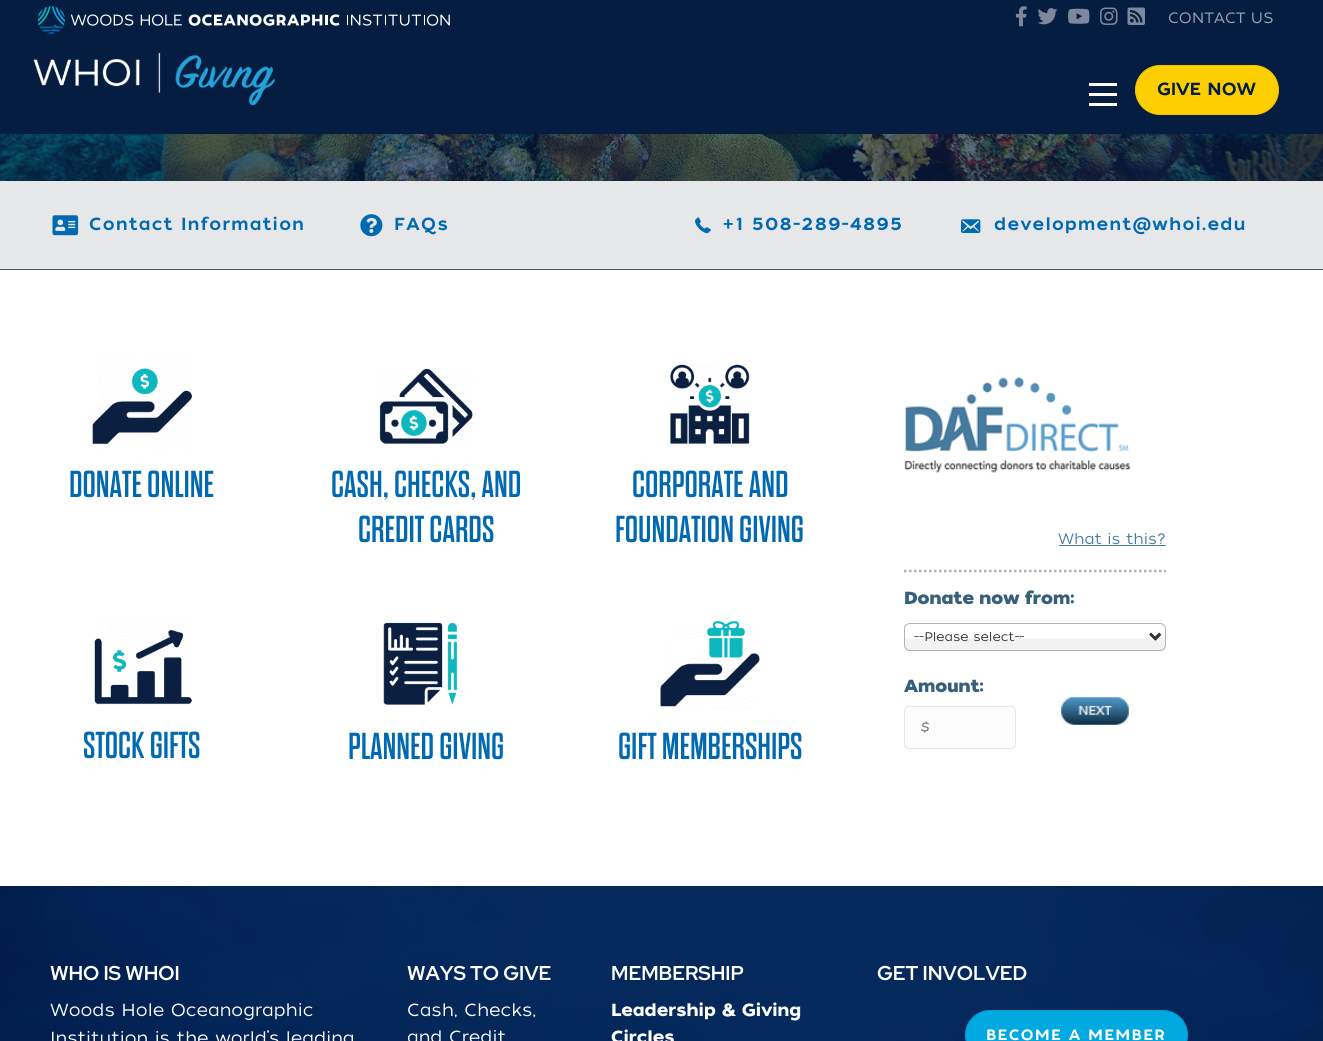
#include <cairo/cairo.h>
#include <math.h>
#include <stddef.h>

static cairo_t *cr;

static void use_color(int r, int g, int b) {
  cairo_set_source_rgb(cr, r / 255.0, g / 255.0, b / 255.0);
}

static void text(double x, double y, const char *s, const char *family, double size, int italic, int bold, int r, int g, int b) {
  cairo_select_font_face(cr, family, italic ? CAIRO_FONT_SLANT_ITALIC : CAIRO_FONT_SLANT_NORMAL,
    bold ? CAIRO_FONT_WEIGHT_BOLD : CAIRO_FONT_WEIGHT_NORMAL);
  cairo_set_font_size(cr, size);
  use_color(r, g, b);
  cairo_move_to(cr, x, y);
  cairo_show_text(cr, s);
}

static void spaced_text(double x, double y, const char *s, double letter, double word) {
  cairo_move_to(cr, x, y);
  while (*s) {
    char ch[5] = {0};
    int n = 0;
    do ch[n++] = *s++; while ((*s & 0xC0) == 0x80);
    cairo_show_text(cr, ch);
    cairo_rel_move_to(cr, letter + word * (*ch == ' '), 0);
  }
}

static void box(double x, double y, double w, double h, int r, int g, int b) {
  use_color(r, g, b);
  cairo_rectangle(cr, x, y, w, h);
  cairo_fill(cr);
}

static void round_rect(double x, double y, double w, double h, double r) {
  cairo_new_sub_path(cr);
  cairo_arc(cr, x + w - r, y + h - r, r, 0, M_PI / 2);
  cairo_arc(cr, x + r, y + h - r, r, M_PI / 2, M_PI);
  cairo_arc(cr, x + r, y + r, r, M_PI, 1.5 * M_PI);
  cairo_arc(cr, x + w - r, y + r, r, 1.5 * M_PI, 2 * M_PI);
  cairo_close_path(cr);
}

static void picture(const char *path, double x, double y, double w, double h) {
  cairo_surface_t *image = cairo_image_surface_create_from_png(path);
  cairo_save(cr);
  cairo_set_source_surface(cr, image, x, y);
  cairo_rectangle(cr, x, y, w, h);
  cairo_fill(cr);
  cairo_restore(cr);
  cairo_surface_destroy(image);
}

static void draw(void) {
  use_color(255, 255, 255);
  cairo_paint(cr);
  box(0, 0, 1323, 134, 4, 29, 65);
  picture("img_01.png", 38, 6, 412, 28);
  picture("img_02.png", 1015, 6, 12, 21);
  picture("img_03.png", 1037, 8, 21, 17);
  picture("img_04.png", 1068, 8, 22, 16);
  picture("img_05.png", 1100, 7, 18, 18);
  picture("img_06.png", 1127, 7, 18, 18);
  picture("img_07.png", 33, 52, 242, 54);
  box(1089, 83, 28, 3, 255, 255, 255);
  box(1089, 93, 28, 3, 255, 255, 255);
  box(1089, 103, 28, 3, 255, 255, 255);
  use_color(253, 207, 0);
  round_rect(1135.5, 65.5, 143, 49, 24.5);
  cairo_fill_preserve(cr);
  use_color(241, 195, 0);
  cairo_set_line_width(cr, 1);
  cairo_stroke(cr);
  picture("img_08.png", 0, 134, 1323, 47);
  box(0, 181, 1323, 88, 230, 231, 232);
  box(0, 269, 1323, 1, 83, 86, 90);
  picture("img_09.png", 52, 215, 27, 21);
  picture("img_10.png", 360, 214, 23, 23);
  picture("img_11.png", 695, 217, 16, 17);
  picture("img_12.png", 961, 219, 20, 14);
  picture("img_13.png", 92, 357, 101, 93);
  picture("img_14.png", 94, 617, 98, 94);
  picture("img_15.png", 379, 368, 94, 76);
  picture("img_16.png", 383, 622, 74, 83);
  picture("img_17.png", 670, 364, 80, 80);
  picture("img_18.png", 660, 621, 100, 91);
  picture("img_19.png", 904, 377, 227, 96);
  cairo_new_path(cr);
  cairo_move_to(cr, 904, 571);
  cairo_line_to(cr, 1166, 571);
  use_color(178, 178, 178);
  cairo_set_line_width(cr, 2.5);
  cairo_set_dash(cr, (double[]){2.5, 2.5}, 2, 0);
  cairo_stroke(cr);
  box(1059, 545, 107, 1, 71, 124, 158);
  picture("img_20.png", 904, 632, 262, 19);
  round_rect(904.5, 623.5, 261, 27, 5.5);
  use_color(178, 178, 178);
  cairo_set_line_width(cr, 1);
  cairo_set_dash(cr, NULL, 0, 0);
  cairo_stroke(cr);
  cairo_new_path(cr);
  cairo_move_to(cr, 1150.5, 634);
  cairo_line_to(cr, 1155.5, 639);
  cairo_line_to(cr, 1160.5, 634);
  use_color(51, 51, 51);
  cairo_set_line_width(cr, 2.5);
  cairo_stroke(cr);
  use_color(252, 252, 252);
  round_rect(904.5, 706.5, 111, 42, 4.5);
  cairo_fill_preserve(cr);
  use_color(230, 230, 230);
  cairo_set_line_width(cr, 1);
  cairo_stroke(cr);
  picture("img_21.png", 1061, 697, 68, 28);
  picture("img_22.png", 0, 886, 1323, 155);
  use_color(0, 169, 224);
  round_rect(965.5, 1010.5, 222, 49, 24.5);
  cairo_fill_preserve(cr);
  use_color(0, 157, 212);
  cairo_stroke(cr);
  text(1168, 23, "CONTACT US", "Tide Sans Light", 15, 0, 0, 155, 165, 179);
  text(1157, 95, "GIVE NOW", "Tide Sans Medium", 17.5, 0, 0, 4, 29, 65);
  use_color(0, 105, 177);
  spaced_text(89, 230, "Contact Information", 1.25, 0);
  spaced_text(394, 230, "FAQs", 1.25, 0);
  spaced_text(722, 230, "+1 508-289-4895", 1.25, 0);
  spaced_text(994, 230, "development@whoi.edu", 1.25, 0);
  text(69, 497, "DONATE ONLINE", "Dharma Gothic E", 37.5, 0, 0, 0, 105, 177);
  text(83, 758, "STOCK GIFTS", "Dharma Gothic E", 37.5, 0, 0, 0, 105, 177);
  text(331, 497, "CASH, CHECKS, AND", "Dharma Gothic E", 37.5, 0, 0, 0, 105, 177);
  text(358, 542, "CREDIT CARDS", "Dharma Gothic E", 37.5, 0, 0, 0, 105, 177);
  text(348, 759, "PLANNED GIVING", "Dharma Gothic E", 37.5, 0, 0, 0, 105, 177);
  text(632, 497, "CORPORATE AND", "Dharma Gothic E", 37.5, 0, 0, 0, 105, 177);
  text(615, 542, "FOUNDATION GIVING", "Dharma Gothic E", 37.5, 0, 0, 0, 105, 177);
  text(618, 759, "GIFT MEMBERSHIPS", "Dharma Gothic E", 37.5, 0, 0, 0, 105, 177);
  text(1058, 544, "What is this?", "Tide Sans Light", 15, 0, 0, 71, 124, 158);
  text(904, 604, "Donate now from:", "Tide Sans", 17.5, 0, 1, 54, 95, 123);
  text(914, 641, "--Please select--", "Tide Sans Light", 12.5, 0, 0, 51, 51, 51);
  text(904, 692, "Amount:", "Tide Sans", 17.5, 0, 1, 54, 95, 123);
  text(920, 733, "$", "Tide Sans Light", 17.5, 0, 0, 117, 117, 117);
  text(50, 980, "WHO IS WHOI", "Red Hat Display", 20, 0, 1, 255, 255, 255);
  text(50, 1016, "Woods Hole Oceanographic", "Tide Sans Light", 17.5, 0, 0, 255, 255, 255);
  text(50, 1044, "Institution is the world’s leading", "Tide Sans Light", 17.5, 0, 0, 255, 255, 255);
  text(407, 980, "WAYS TO GIVE", "Red Hat Display", 20, 0, 1, 255, 255, 255);
  text(407, 1016, "Cash, Checks,", "Tide Sans Light", 17.5, 0, 0, 255, 255, 255);
  text(407, 1043, "and Credit", "Tide Sans Light", 17.5, 0, 0, 255, 255, 255);
  text(611, 980, "MEMBERSHIP", "Red Hat Display", 20, 0, 1, 255, 255, 255);
  text(611, 1016, "Leadership & Giving", "Tide Sans SemiBold", 17.5, 0, 0, 255, 255, 255);
  text(611, 1043, "Circles", "Tide Sans SemiBold", 17.5, 0, 0, 255, 255, 255);
  text(877, 980, "GET INVOLVED", "Red Hat Display", 20, 0, 1, 255, 255, 255);
  cairo_select_font_face(cr, "Tide Sans Medium", CAIRO_FONT_SLANT_NORMAL, CAIRO_FONT_WEIGHT_NORMAL);
  cairo_set_font_size(cr, 15);
  spaced_text(986, 1040, "BECOME A MEMBER", 1.25, 0);
}

int main(void) {
  cairo_surface_t *surface = cairo_image_surface_create(CAIRO_FORMAT_RGB24, 1323, 1041);
  cr = cairo_create(surface);
  cairo_font_options_t *options = cairo_font_options_create();
  cairo_font_options_set_hint_metrics(options, CAIRO_HINT_METRICS_OFF);
  cairo_font_options_set_hint_style(options, CAIRO_HINT_STYLE_NONE);
  cairo_set_font_options(cr, options);
  cairo_set_miter_limit(cr, 4);
  draw();
  cairo_surface_write_to_png(surface, "out.png");
  cairo_font_options_destroy(options);
  cairo_destroy(cr);
  cairo_surface_destroy(surface);
  return 0;
}
